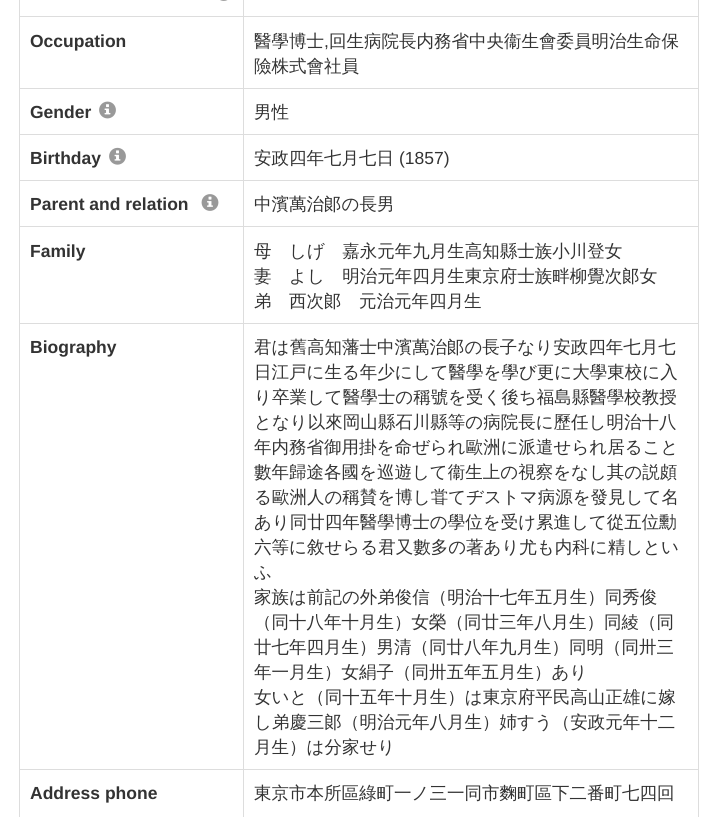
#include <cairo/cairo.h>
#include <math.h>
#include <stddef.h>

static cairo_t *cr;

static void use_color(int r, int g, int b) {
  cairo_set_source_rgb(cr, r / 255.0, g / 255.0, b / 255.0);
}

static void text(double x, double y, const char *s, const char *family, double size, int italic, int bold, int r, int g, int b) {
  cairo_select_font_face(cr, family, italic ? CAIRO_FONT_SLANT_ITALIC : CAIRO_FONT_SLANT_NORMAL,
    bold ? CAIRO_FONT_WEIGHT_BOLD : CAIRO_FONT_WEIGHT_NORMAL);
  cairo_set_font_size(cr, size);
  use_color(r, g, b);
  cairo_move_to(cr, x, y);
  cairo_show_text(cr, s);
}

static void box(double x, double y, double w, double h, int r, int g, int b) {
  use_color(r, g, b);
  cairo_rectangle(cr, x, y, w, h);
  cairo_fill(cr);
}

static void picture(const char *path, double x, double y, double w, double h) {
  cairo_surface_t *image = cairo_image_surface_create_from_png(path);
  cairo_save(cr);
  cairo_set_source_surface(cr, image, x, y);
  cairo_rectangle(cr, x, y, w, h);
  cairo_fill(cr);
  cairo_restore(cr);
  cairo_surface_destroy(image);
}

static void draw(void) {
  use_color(255, 255, 255);
  cairo_paint(cr);
  box(698, 0, 1, 817, 221, 221, 221);
  box(19, 0, 1, 817, 221, 221, 221);
  picture("img_01.png", 220, 0, 8, 1);
  box(243, 16, 456, 1, 221, 221, 221);
  box(243, 88, 456, 1, 221, 221, 221);
  box(243, 134, 456, 1, 221, 221, 221);
  box(243, 180, 456, 1, 221, 221, 221);
  box(243, 226, 456, 1, 221, 221, 221);
  box(243, 323, 456, 1, 221, 221, 221);
  box(243, 769, 456, 1, 221, 221, 221);
  box(243, 769, 1, 48, 221, 221, 221);
  box(19, 769, 225, 1, 221, 221, 221);
  box(243, 323, 1, 447, 221, 221, 221);
  box(19, 323, 225, 1, 221, 221, 221);
  box(243, 226, 1, 98, 221, 221, 221);
  box(19, 226, 225, 1, 221, 221, 221);
  box(243, 180, 1, 48, 221, 221, 221);
  box(19, 180, 225, 1, 221, 221, 221);
  box(243, 134, 1, 47, 221, 221, 221);
  box(19, 134, 225, 1, 221, 221, 221);
  box(243, 88, 1, 47, 221, 221, 221);
  box(19, 88, 225, 1, 221, 221, 221);
  box(243, 16, 1, 73, 221, 221, 221);
  box(19, 16, 225, 1, 221, 221, 221);
  box(243, 0, 1, 18, 221, 221, 221);
  picture("img_02.png", 99, 101, 17, 18);
  picture("img_03.png", 109, 147, 17, 18);
  picture("img_04.png", 201, 194, 18, 17);
  text(30, 47, "Occupation", "Liberation Sans", 17.5, 0, 1, 51, 51, 51);
  text(254, 47, "醫學博士", "WenQuanYi Zen Hei Medium", 17.5, 0, 0, 51, 51, 51);
  text(324, 47, ",", "Liberation Sans", 17.5, 0, 0, 51, 51, 51);
  text(329, 47, "回生病院長内務省中央衞生會委員明治生命保", "WenQuanYi Zen Hei Medium", 17.5, 0, 0, 51, 51, 51);
  text(254, 72, "險株式會社員", "WenQuanYi Zen Hei Medium", 17.5, 0, 0, 51, 51, 51);
  text(30, 118, "Gender", "Liberation Sans", 17.5, 0, 1, 51, 51, 51);
  text(254, 118, "男性", "WenQuanYi Zen Hei Medium", 17.5, 0, 0, 51, 51, 51);
  text(30, 164, "Birthday", "Liberation Sans", 17.5, 0, 1, 51, 51, 51);
  text(254, 164, "安政四年七月七日", "WenQuanYi Zen Hei Medium", 17.5, 0, 0, 51, 51, 51);
  text(399, 164, "(1857)", "Liberation Sans", 17.5, 0, 0, 51, 51, 51);
  text(30, 210, "Parent and relation", "Liberation Sans", 17.5, 0, 1, 51, 51, 51);
  text(254, 210, "中濱萬治郞の長男", "WenQuanYi Zen Hei Medium", 17.5, 0, 0, 51, 51, 51);
  text(30, 257, "Family", "Liberation Sans", 17.5, 0, 1, 51, 51, 51);
  text(254, 257, "母　しげ　嘉永元年九月生高知縣士族小川登女", "WenQuanYi Zen Hei Medium", 17.5, 0, 0, 51, 51, 51);
  text(254, 282, "妻　よし　明治元年四月生東京府士族畔柳覺次郞女", "WenQuanYi Zen Hei Medium", 17.5, 0, 0, 51, 51, 51);
  text(254, 307, "弟　西次郞　元治元年四月生", "WenQuanYi Zen Hei Medium", 17.5, 0, 0, 51, 51, 51);
  text(30, 353, "Biography", "Liberation Sans", 17.5, 0, 1, 51, 51, 51);
  text(254, 353, "君は舊高知藩士中濱萬治郞の長子なり安政四年七月七", "WenQuanYi Zen Hei Medium", 17.5, 0, 0, 51, 51, 51);
  text(254, 378, "日江戸に生る年少にして醫學を學び更に大學東校に入", "WenQuanYi Zen Hei Medium", 17.5, 0, 0, 51, 51, 51);
  text(254, 403, "り卒業して醫學士の稱號を受く後ち福島縣醫學校教授", "WenQuanYi Zen Hei Medium", 17.5, 0, 0, 51, 51, 51);
  text(254, 428, "となり以來岡山縣石川縣等の病院長に歷任し明治十八", "WenQuanYi Zen Hei Medium", 17.5, 0, 0, 51, 51, 51);
  text(254, 453, "年内務省御用掛を命ぜられ歐洲に派遣せられ居ること", "WenQuanYi Zen Hei Medium", 17.5, 0, 0, 51, 51, 51);
  text(254, 478, "數年歸途各國を巡遊して衞生上の視察をなし其の説頗", "WenQuanYi Zen Hei Medium", 17.5, 0, 0, 51, 51, 51);
  text(254, 503, "る歐洲人の稱賛を博し甞てヂストマ病源を發見して名", "WenQuanYi Zen Hei Medium", 17.5, 0, 0, 51, 51, 51);
  text(254, 528, "あり同廿四年醫學博士の學位を受け累進して從五位勳", "WenQuanYi Zen Hei Medium", 17.5, 0, 0, 51, 51, 51);
  text(254, 553, "六等に敘せらる君又數多の著あり尤も内科に精しとい", "WenQuanYi Zen Hei Medium", 17.5, 0, 0, 51, 51, 51);
  text(254, 578, "ふ", "WenQuanYi Zen Hei Medium", 17.5, 0, 0, 51, 51, 51);
  text(254, 603, "家族は前記の外弟俊信（明治十七年五月生）同秀俊", "WenQuanYi Zen Hei Medium", 17.5, 0, 0, 51, 51, 51);
  text(254, 628, "（同十八年十月生）女榮（同廿三年八月生）同綾（同", "WenQuanYi Zen Hei Medium", 17.5, 0, 0, 51, 51, 51);
  text(254, 653, "廿七年四月生）男清（同廿八年九月生）同明（同卅三", "WenQuanYi Zen Hei Medium", 17.5, 0, 0, 51, 51, 51);
  text(254, 678, "年一月生）女絹子（同卅五年五月生）あり", "WenQuanYi Zen Hei Medium", 17.5, 0, 0, 51, 51, 51);
  text(254, 703, "女いと（同十五年十月生）は東京府平民高山正雄に嫁", "WenQuanYi Zen Hei Medium", 17.5, 0, 0, 51, 51, 51);
  text(254, 728, "し弟慶三郞（明治元年八月生）姉すう（安政元年十二", "WenQuanYi Zen Hei Medium", 17.5, 0, 0, 51, 51, 51);
  text(254, 753, "月生）は分家せり", "WenQuanYi Zen Hei Medium", 17.5, 0, 0, 51, 51, 51);
  text(30, 799, "Address phone", "Liberation Sans", 17.5, 0, 1, 51, 51, 51);
  text(254, 799, "東京市本所區綠町一ノ三一同市麴町區下二番町七四回", "WenQuanYi Zen Hei Medium", 17.5, 0, 0, 51, 51, 51);
}

int main(void) {
  cairo_surface_t *surface = cairo_image_surface_create(CAIRO_FORMAT_RGB24, 717, 817);
  cr = cairo_create(surface);
  cairo_font_options_t *options = cairo_font_options_create();
  cairo_font_options_set_hint_metrics(options, CAIRO_HINT_METRICS_OFF);
  cairo_font_options_set_hint_style(options, CAIRO_HINT_STYLE_NONE);
  cairo_set_font_options(cr, options);
  cairo_set_miter_limit(cr, 4);
  draw();
  cairo_surface_write_to_png(surface, "out.png");
  cairo_font_options_destroy(options);
  cairo_destroy(cr);
  cairo_surface_destroy(surface);
  return 0;
}
